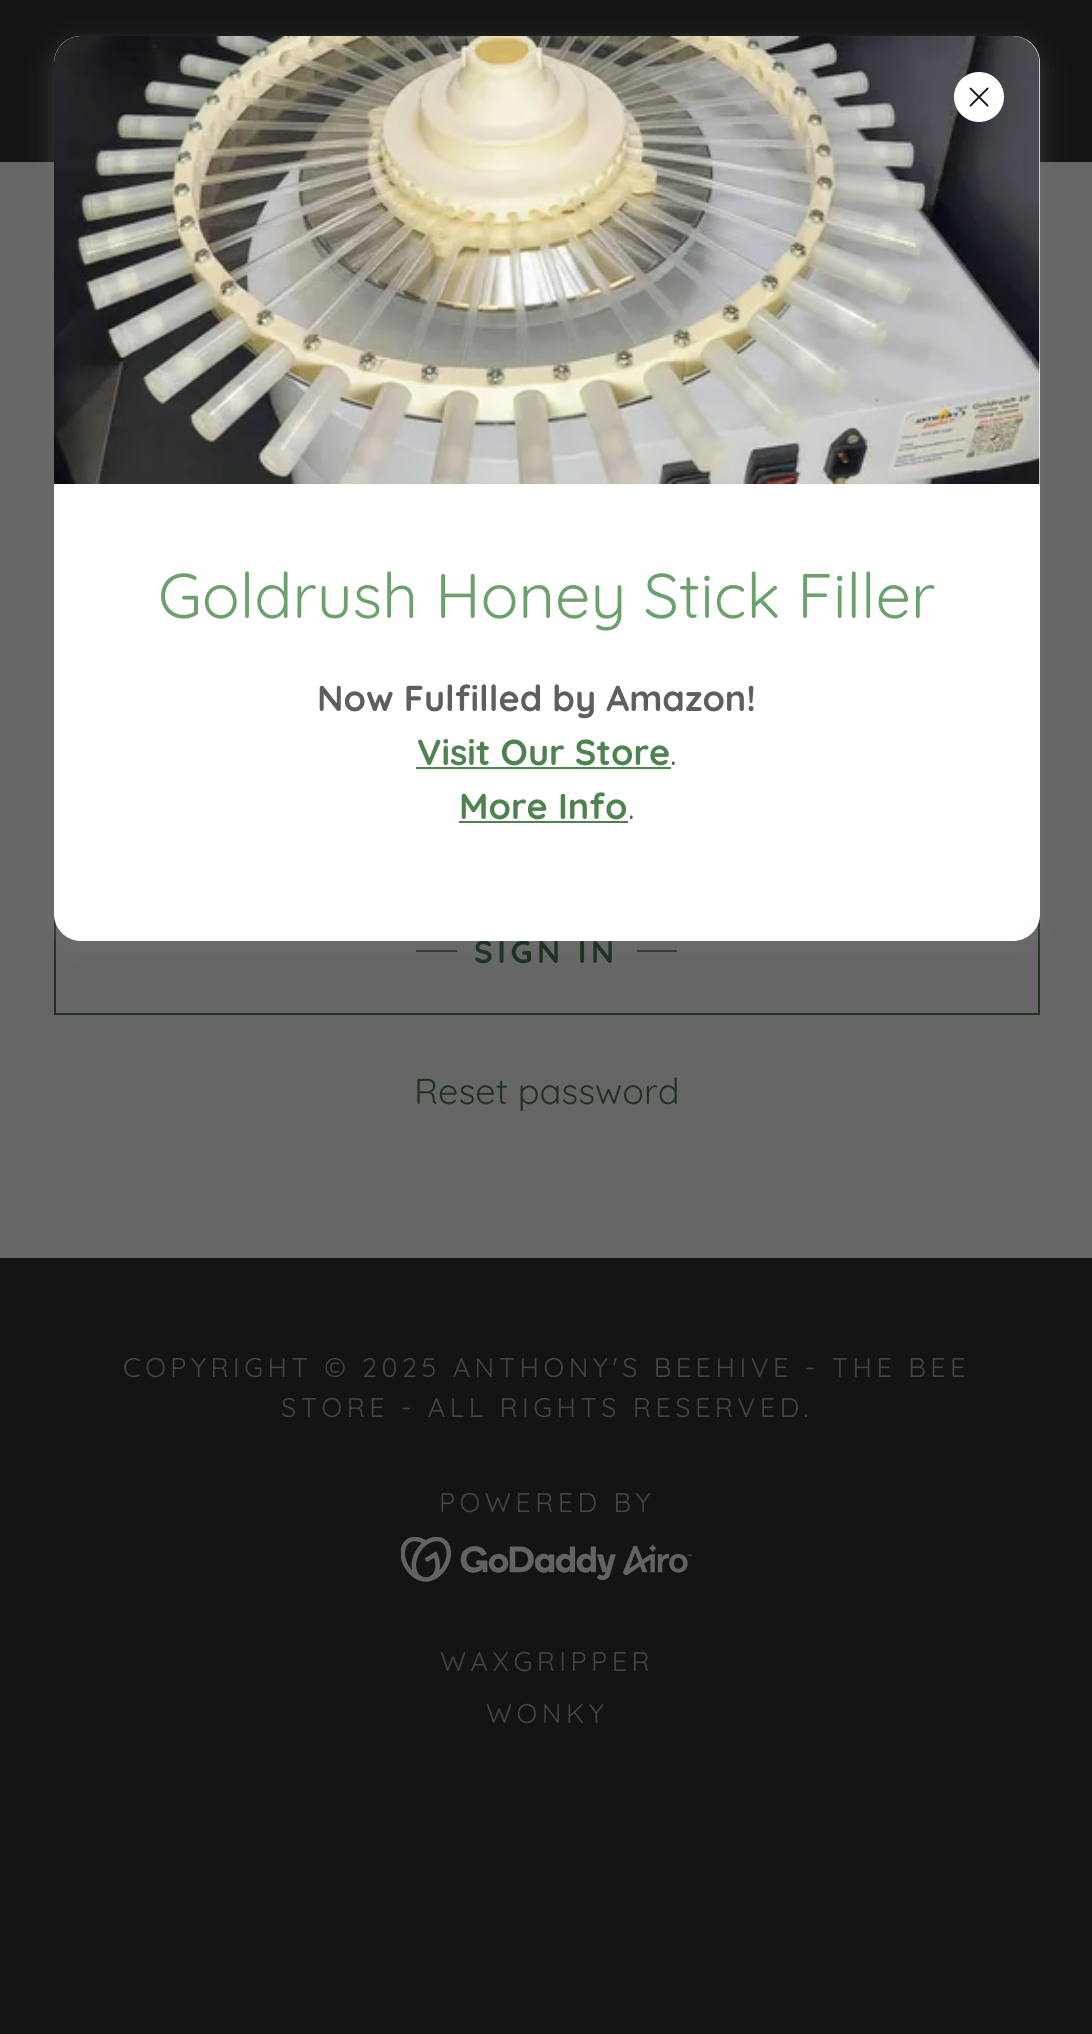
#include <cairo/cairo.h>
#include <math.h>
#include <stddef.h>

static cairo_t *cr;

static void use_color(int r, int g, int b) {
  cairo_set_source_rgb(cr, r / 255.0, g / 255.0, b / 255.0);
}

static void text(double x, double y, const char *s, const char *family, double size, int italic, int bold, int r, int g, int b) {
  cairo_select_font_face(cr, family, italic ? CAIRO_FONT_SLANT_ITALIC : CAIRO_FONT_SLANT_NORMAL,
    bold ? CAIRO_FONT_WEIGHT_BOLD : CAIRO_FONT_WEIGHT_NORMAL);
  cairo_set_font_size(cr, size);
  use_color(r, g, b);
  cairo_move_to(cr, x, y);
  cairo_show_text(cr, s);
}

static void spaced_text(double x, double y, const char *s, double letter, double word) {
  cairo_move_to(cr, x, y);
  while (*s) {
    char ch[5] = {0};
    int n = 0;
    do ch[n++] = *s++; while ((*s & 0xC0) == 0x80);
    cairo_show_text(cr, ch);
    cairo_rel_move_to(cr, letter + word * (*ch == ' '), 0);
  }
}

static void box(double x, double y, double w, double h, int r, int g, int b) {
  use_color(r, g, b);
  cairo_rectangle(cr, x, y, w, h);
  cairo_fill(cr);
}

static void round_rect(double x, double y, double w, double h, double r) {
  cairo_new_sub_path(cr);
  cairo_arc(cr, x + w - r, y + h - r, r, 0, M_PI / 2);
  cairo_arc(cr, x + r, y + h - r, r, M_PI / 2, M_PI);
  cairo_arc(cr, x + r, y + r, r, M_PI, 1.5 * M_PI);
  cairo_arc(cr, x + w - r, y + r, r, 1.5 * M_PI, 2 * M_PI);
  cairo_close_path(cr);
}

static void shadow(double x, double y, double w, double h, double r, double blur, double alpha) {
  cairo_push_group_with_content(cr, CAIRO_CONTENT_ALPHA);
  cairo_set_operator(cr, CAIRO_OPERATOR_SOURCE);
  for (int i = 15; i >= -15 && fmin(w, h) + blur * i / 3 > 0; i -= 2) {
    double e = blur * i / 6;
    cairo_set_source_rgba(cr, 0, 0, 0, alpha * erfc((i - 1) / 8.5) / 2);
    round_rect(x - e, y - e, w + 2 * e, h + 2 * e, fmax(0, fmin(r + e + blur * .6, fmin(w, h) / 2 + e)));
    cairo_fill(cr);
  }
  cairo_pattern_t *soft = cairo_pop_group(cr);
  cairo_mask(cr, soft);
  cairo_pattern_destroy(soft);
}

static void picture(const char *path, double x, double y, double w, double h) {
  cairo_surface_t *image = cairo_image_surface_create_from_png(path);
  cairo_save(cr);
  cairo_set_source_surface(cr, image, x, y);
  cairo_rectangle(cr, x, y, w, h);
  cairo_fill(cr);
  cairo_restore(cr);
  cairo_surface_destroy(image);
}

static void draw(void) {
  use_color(20, 20, 20);
  cairo_paint(cr);
  box(0, 162, 1092, 1096, 102, 102, 102);
  cairo_rectangle(cr, 55, 890, 984, 124);
  use_color(31, 52, 32);
  cairo_stroke(cr);
  box(416, 950, 41, 2, 31, 52, 32);
  box(637, 950, 40, 2, 31, 52, 32);
  use_color(117, 117, 117);
  shadow(54, 45, 986, 905, 27, 13.5, 0.4);
  picture("img_03.png", 401, 1537, 291, 45);
  cairo_select_font_face(cr, "Quicksand", CAIRO_FONT_SLANT_NORMAL, CAIRO_FONT_WEIGHT_BOLD);
  cairo_set_font_size(cr, 31.5);
  use_color(31, 52, 32);
  spaced_text(474, 963, "SIGN IN", 4.5, 0);
  use_color(255, 255, 255);
  round_rect(54, 36, 986, 905, 27);
  cairo_fill(cr);
  picture("img_02.png", 54, 36, 986, 448);
  cairo_arc(cr, 979, 97, 25, 0, 2 * M_PI);
  cairo_fill(cr);
  picture("img_01.png", 969, 87, 20, 20);
  text(628, 819, ".", "Quicksand", 36, 0, 0, 94, 94, 94);
  text(459, 819, "More Info", "Quicksand", 36, 0, 1, 78, 130, 81);
  box(459, 821, 169, 2, 78, 130, 81);
  text(670, 765, ".", "Quicksand", 36, 0, 0, 94, 94, 94);
  text(417, 765, "Visit Our Store", "Quicksand", 36, 0, 1, 78, 130, 81);
  box(416, 767, 255, 2, 78, 130, 81);
  text(317, 711, "Now Fulfilled by Amazon!", "Quicksand", 36, 0, 1, 94, 94, 94);
  text(158, 618, "Goldrush Honey Stick Filler", "Quicksand", 63, 0, 0, 108, 161, 110);
  text(414, 1104, "Reset password", "Quicksand", 36, 0, 0, 31, 52, 32);
  cairo_set_font_size(cr, 27);
  use_color(68, 68, 68);
  spaced_text(123, 1377, "COPYRIGHT © 2025 ANTHONY'S BEEHIVE - THE BEE", 4.5, 0);
  spaced_text(281, 1417, "STORE - ALL RIGHTS RESERVED.", 4.5, 0);
  spaced_text(439, 1512, "POWERED BY", 4.5, 0);
  spaced_text(440, 1671, "WAXGRIPPER", 4.5, 0);
  spaced_text(486, 1723, "WONKY", 4.5, 0);
}

int main(void) {
  cairo_surface_t *surface = cairo_image_surface_create(CAIRO_FORMAT_RGB24, 1092, 2034);
  cr = cairo_create(surface);
  cairo_font_options_t *options = cairo_font_options_create();
  cairo_font_options_set_hint_metrics(options, CAIRO_HINT_METRICS_OFF);
  cairo_font_options_set_hint_style(options, CAIRO_HINT_STYLE_NONE);
  cairo_set_font_options(cr, options);
  cairo_set_miter_limit(cr, 4);
  draw();
  cairo_surface_write_to_png(surface, "out.png");
  cairo_font_options_destroy(options);
  cairo_destroy(cr);
  cairo_surface_destroy(surface);
  return 0;
}
